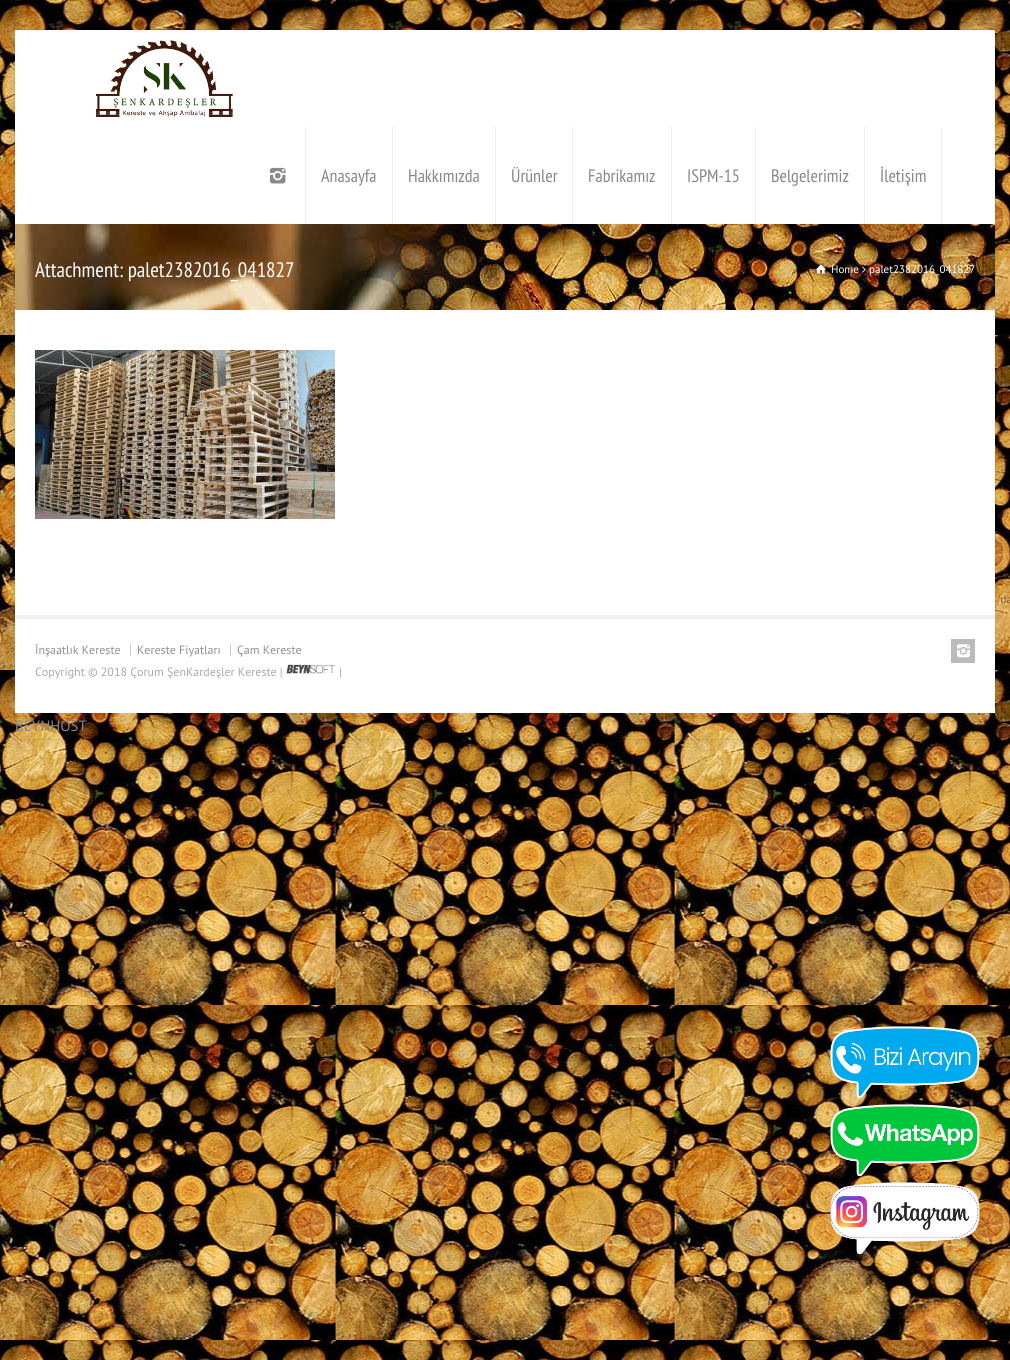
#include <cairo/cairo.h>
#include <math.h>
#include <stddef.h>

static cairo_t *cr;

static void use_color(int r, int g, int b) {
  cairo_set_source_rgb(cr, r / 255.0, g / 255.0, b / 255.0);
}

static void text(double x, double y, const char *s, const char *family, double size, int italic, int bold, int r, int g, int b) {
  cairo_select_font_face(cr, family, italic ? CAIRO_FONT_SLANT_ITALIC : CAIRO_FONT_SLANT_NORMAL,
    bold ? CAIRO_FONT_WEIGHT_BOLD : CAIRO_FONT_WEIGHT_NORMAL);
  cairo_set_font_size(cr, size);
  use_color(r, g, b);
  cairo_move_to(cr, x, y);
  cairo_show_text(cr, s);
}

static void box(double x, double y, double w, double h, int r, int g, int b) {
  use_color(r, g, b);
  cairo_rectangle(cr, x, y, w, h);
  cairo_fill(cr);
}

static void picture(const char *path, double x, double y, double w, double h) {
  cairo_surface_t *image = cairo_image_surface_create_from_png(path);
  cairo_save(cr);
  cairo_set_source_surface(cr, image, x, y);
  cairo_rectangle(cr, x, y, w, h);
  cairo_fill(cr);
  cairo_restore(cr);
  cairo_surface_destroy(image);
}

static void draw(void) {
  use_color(255, 255, 255);
  cairo_paint(cr);
  picture("img_01.png", 0, 0, 1010, 1360);
  cairo_rectangle(cr, 14.5, 29.5, 981, 710);
  cairo_set_source_rgba(cr, 0.016, 0.016, 0.016, 0.06);
  cairo_set_line_width(cr, 1);
  cairo_stroke(cr);
  picture("img_10.png", 830, 1026, 150, 73);
  picture("img_11.png", 830, 1104, 150, 73);
  picture("img_12.png", 830, 1182, 150, 73);
  text(998, 603, "'da", "PT Sans", 11, 0, 0, 133, 86, 33);
  cairo_rectangle(cr, 11, 26, 988, 717);
  cairo_set_source_rgba(cr, 0, 0, 0, 0.03);
  cairo_set_line_width(cr, 8);
  cairo_stroke(cr);
  box(15, 310, 980, 305, 255, 255, 255);
  picture("img_07.png", 35, 350, 300, 169);
  picture("img_04.png", 15, 224, 980, 86);
  text(35, 277, "Attachment: palet2382016_041827", "PT Sans Narrow", 21, 0, 0, 255, 255, 255);
  text(869, 273, "palet2382016_041827", "PT Sans", 11, 0, 0, 255, 255, 255);
  picture("img_06.png", 862, 266, 4, 7);
  text(831, 273, "Home", "PT Sans", 11, 0, 0, 255, 255, 255);
  picture("img_05.png", 816, 264, 10, 10);
  box(15, 619, 980, 94, 255, 255, 255);
  box(951, 639, 24, 24, 187, 187, 187);
  box(15, 30, 980, 194, 255, 255, 255);
  text(880, 182, "İletişim", "PT Sans Narrow", 18, 0, 0, 136, 136, 136);
  box(941, 127, 1, 97, 238, 238, 238);
  text(771, 182, "Belgelerimiz", "PT Sans Narrow", 18, 0, 0, 136, 136, 136);
  box(864, 127, 1, 97, 238, 238, 238);
  text(687, 182, "ISPM-15", "PT Sans Narrow", 18, 0, 0, 136, 136, 136);
  box(755, 127, 1, 97, 238, 238, 238);
  text(588, 182, "Fabrikamız", "PT Sans Narrow", 18, 0, 0, 136, 136, 136);
  box(671, 127, 1, 97, 238, 238, 238);
  text(511, 182, "Ürünler", "PT Sans Narrow", 18, 0, 0, 136, 136, 136);
  box(572, 127, 1, 97, 238, 238, 238);
  text(408, 182, "Hakkımızda", "PT Sans Narrow", 18, 0, 0, 136, 136, 136);
  box(495, 127, 1, 97, 238, 238, 238);
  text(321, 182, "Anasayfa", "PT Sans Narrow", 18, 0, 0, 136, 136, 136);
  box(392, 127, 1, 97, 238, 238, 238);
  picture("img_03.png", 270, 167, 16, 17);
  box(305, 127, 1, 97, 238, 238, 238);
  picture("img_02.png", 96, 40, 137, 77);
  box(15, 615, 980, 4, 240, 240, 240);
  picture("img_08.png", 957, 644, 13, 14);
  text(35, 654, "İnşaatlık Kereste", "PT Sans", 12, 0, 0, 145, 145, 145);
  box(130, 644, 1, 12, 205, 205, 205);
  text(137, 654, "Kereste Fiyatları", "PT Sans", 12, 0, 0, 145, 145, 145);
  box(230, 644, 1, 12, 205, 205, 205);
  text(237, 654, "Çam Kereste", "PT Sans", 12, 0, 0, 145, 145, 145);
  text(35, 676, "Copyright © 2018 Çorum ŞenKardeşler Kereste |", "PT Sans", 12, 0, 0, 169, 169, 169);
  picture("img_09.png", 286, 664, 50, 10);
  text(339, 676, "|", "PT Sans", 12, 0, 0, 169, 169, 169);
  text(15, 731, "BEYNHOST", "PT Sans", 15, 0, 0, 136, 136, 136);
}

int main(void) {
  cairo_surface_t *surface = cairo_image_surface_create(CAIRO_FORMAT_RGB24, 1010, 1360);
  cr = cairo_create(surface);
  cairo_font_options_t *options = cairo_font_options_create();
  cairo_font_options_set_hint_metrics(options, CAIRO_HINT_METRICS_OFF);
  cairo_font_options_set_hint_style(options, CAIRO_HINT_STYLE_NONE);
  cairo_set_font_options(cr, options);
  cairo_set_miter_limit(cr, 4);
  draw();
  cairo_surface_write_to_png(surface, "out.png");
  cairo_font_options_destroy(options);
  cairo_destroy(cr);
  cairo_surface_destroy(surface);
  return 0;
}
